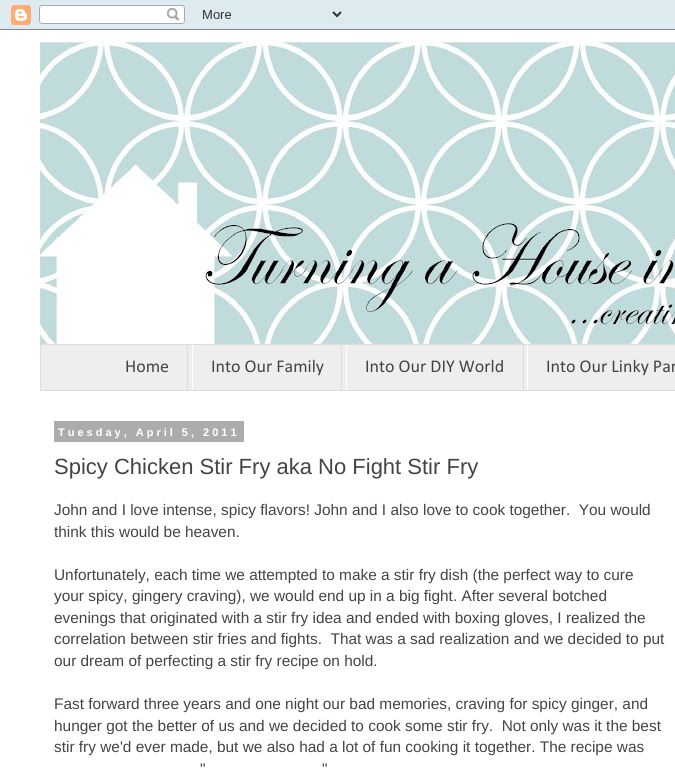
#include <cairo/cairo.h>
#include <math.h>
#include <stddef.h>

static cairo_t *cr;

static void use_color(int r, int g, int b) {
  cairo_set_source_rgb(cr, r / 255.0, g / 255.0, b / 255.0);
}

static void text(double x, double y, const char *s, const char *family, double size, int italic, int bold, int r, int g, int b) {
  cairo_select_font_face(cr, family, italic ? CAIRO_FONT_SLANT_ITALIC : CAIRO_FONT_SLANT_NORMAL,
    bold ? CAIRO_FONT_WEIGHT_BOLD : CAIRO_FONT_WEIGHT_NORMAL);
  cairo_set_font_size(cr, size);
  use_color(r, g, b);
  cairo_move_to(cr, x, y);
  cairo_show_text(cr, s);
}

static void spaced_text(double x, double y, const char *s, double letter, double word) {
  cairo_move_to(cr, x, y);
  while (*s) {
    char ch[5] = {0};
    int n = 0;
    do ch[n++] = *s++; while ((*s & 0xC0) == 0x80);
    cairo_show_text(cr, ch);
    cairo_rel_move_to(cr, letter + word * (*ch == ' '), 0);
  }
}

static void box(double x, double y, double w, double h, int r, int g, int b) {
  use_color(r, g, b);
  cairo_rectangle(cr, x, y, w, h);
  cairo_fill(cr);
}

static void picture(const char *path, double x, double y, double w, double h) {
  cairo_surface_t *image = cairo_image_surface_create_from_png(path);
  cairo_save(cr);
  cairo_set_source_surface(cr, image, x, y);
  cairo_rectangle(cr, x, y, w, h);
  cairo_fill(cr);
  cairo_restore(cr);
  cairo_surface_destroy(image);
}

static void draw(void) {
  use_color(198, 222, 231);
  cairo_paint(cr);
  picture("img_01.png", 0, 0, 675, 30);
  box(0, 30, 675, 738, 255, 255, 255);
  picture("img_02.png", 40, 40, 635, 304);
  use_color(238, 238, 238);
  cairo_rectangle(cr, 40.5, 344.5, 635, 46);
  cairo_fill_preserve(cr);
  use_color(221, 221, 221);
  cairo_set_line_width(cr, 1);
  cairo_stroke(cr);
  box(187, 345, 1, 45, 221, 221, 221);
  box(341, 345, 1, 45, 221, 221, 221);
  box(192, 345, 1, 45, 255, 255, 255);
  box(523, 345, 1, 45, 221, 221, 221);
  box(346, 345, 1, 45, 255, 255, 255);
  box(527, 345, 1, 45, 255, 255, 255);
  box(54, 421, 190, 21, 172, 172, 172);
  text(125, 372, "Home", "Calibri", 18, 0, 0, 68, 68, 68);
  text(211, 372, "Into Our Family", "Calibri", 18, 0, 0, 68, 68, 68);
  text(365, 372, "Into Our DIY World", "Calibri", 18, 0, 0, 68, 68, 68);
  text(546, 372, "Into Our Linky Par", "Calibri", 18, 0, 0, 68, 68, 68);
  cairo_select_font_face(cr, "Liberation Sans", CAIRO_FONT_SLANT_NORMAL, CAIRO_FONT_WEIGHT_BOLD);
  cairo_set_font_size(cr, 11);
  use_color(255, 255, 255);
  spaced_text(58, 436, "Tuesday, April 5, 2011", 3, 0);
  text(54, 474, "Spicy Chicken Stir Fry aka No Fight Stir Fry", "Liberation Sans", 22, 0, 0, 68, 68, 68);
  text(54, 515, "John and I love intense, spicy flavors! John and I also love to cook together.  You would", "Liberation Sans", 15.4, 0, 0, 68, 68, 68);
  text(54, 537, "think this would be heaven.", "Liberation Sans", 15.4, 0, 0, 68, 68, 68);
  text(54, 580, "Unfortunately, each time we attempted to make a stir fry dish (the perfect way to cure", "Liberation Sans", 15.4, 0, 0, 68, 68, 68);
  text(54, 601, "your spicy, gingery craving), we would end up in a big fight. After several botched", "Liberation Sans", 15.4, 0, 0, 68, 68, 68);
  text(54, 623, "evenings that originated with a stir fry idea and ended with boxing gloves, I realized the", "Liberation Sans", 15.4, 0, 0, 68, 68, 68);
  text(54, 644, "correlation between stir fries and fights.  That was a sad realization and we decided to put", "Liberation Sans", 15.4, 0, 0, 68, 68, 68);
  text(54, 666, "our dream of perfecting a stir fry recipe on hold.", "Liberation Sans", 15.4, 0, 0, 68, 68, 68);
  text(54, 709, "Fast forward three years and one night our bad memories, craving for spicy ginger, and", "Liberation Sans", 15.4, 0, 0, 68, 68, 68);
  text(54, 731, "hunger got the better of us and we decided to cook some stir fry.  Not only was it the best", "Liberation Sans", 15.4, 0, 0, 68, 68, 68);
  text(54, 752, "stir fry we'd ever made, but we also had a lot of fun cooking it together. The recipe was", "Liberation Sans", 15.4, 0, 0, 68, 68, 68);
  text(200, 774, "\"", "Liberation Sans", 15.4, 0, 0, 68, 68, 68);
  text(322, 774, "\"", "Liberation Sans", 15.4, 0, 0, 68, 68, 68);
}

int main(void) {
  cairo_surface_t *surface = cairo_image_surface_create(CAIRO_FORMAT_RGB24, 675, 768);
  cr = cairo_create(surface);
  cairo_font_options_t *options = cairo_font_options_create();
  cairo_font_options_set_hint_metrics(options, CAIRO_HINT_METRICS_OFF);
  cairo_font_options_set_hint_style(options, CAIRO_HINT_STYLE_NONE);
  cairo_set_font_options(cr, options);
  cairo_set_miter_limit(cr, 4);
  draw();
  cairo_surface_write_to_png(surface, "out.png");
  cairo_font_options_destroy(options);
  cairo_destroy(cr);
  cairo_surface_destroy(surface);
  return 0;
}
